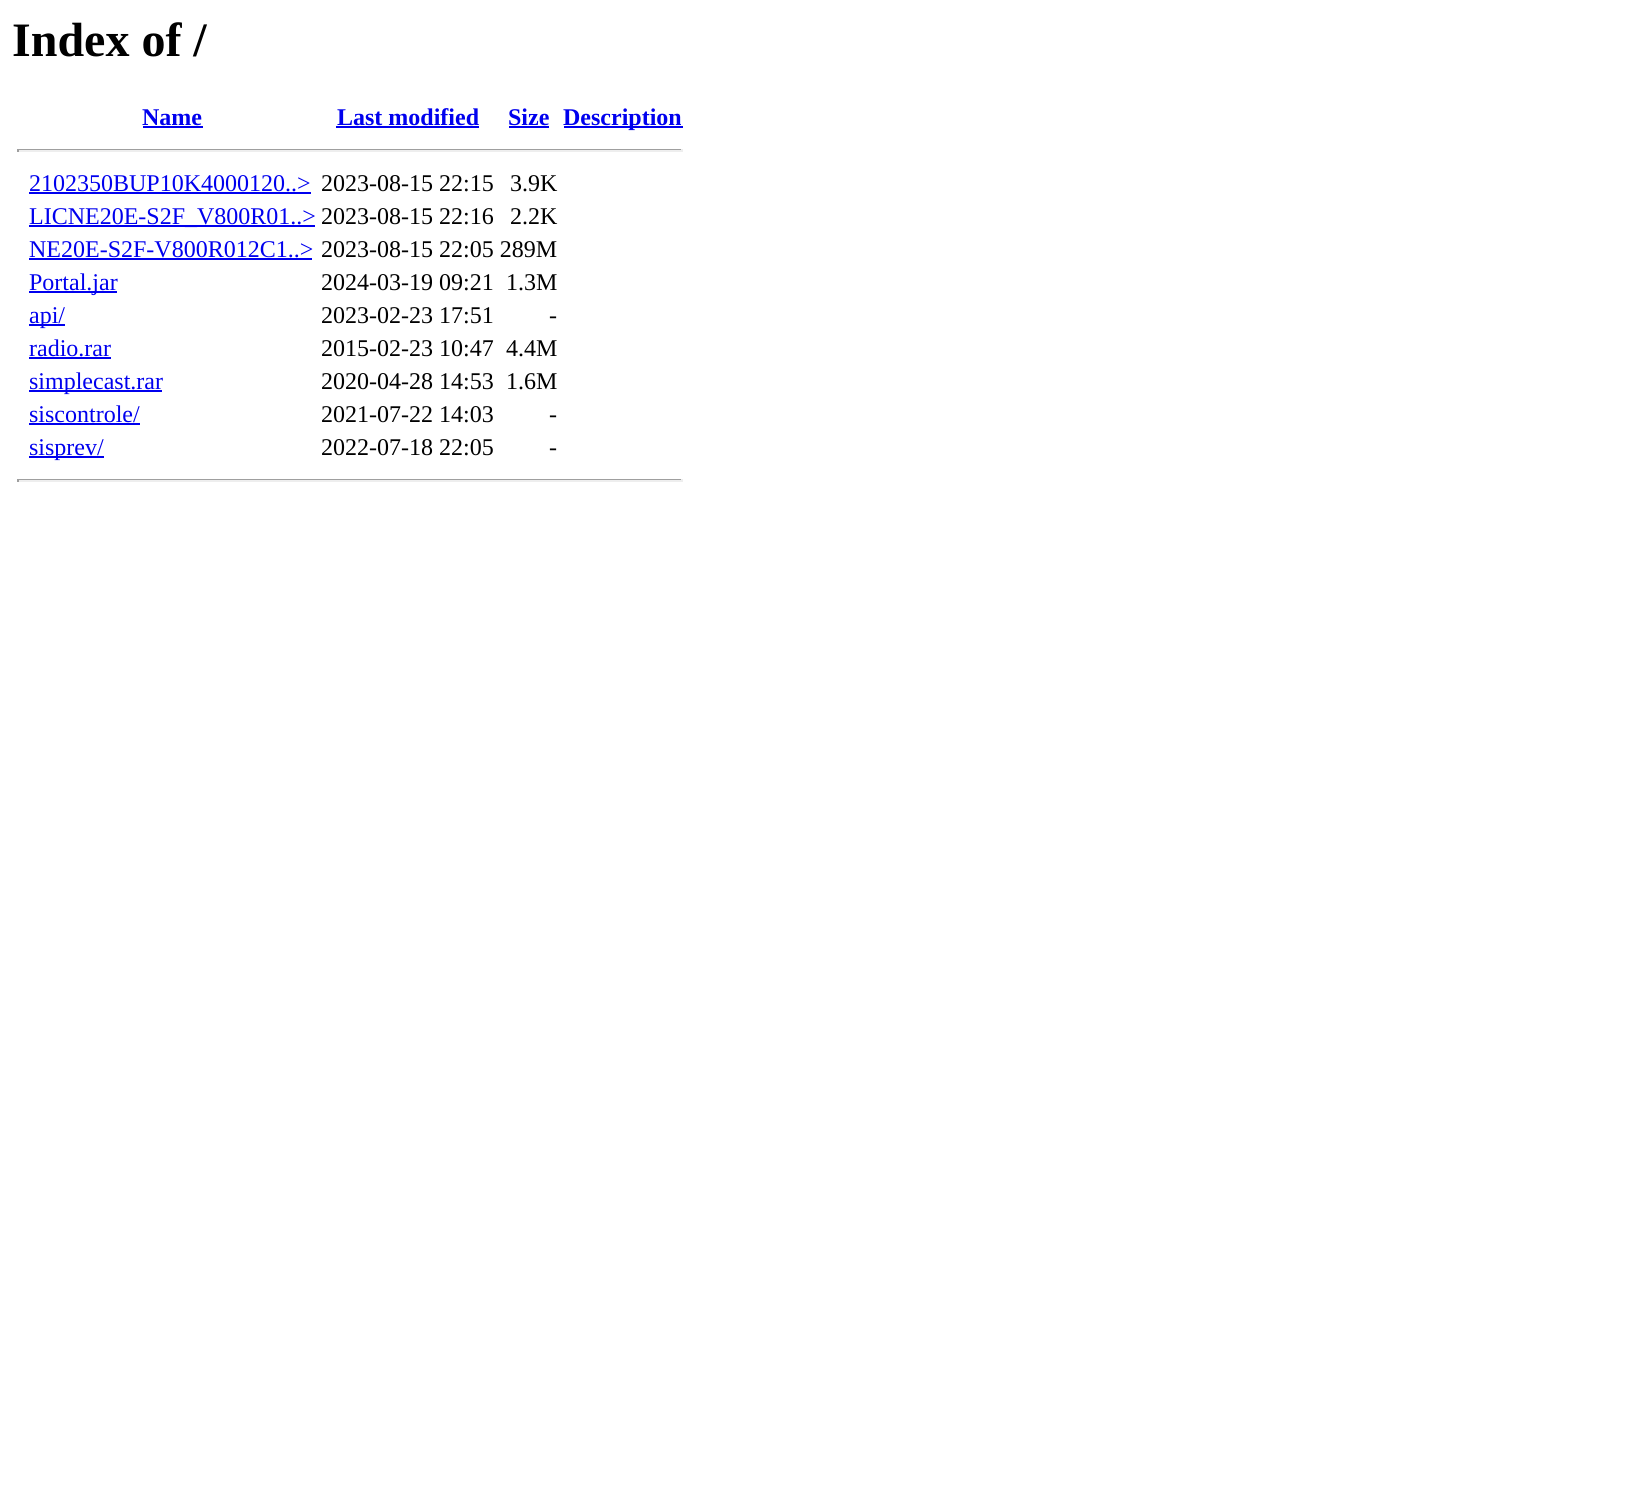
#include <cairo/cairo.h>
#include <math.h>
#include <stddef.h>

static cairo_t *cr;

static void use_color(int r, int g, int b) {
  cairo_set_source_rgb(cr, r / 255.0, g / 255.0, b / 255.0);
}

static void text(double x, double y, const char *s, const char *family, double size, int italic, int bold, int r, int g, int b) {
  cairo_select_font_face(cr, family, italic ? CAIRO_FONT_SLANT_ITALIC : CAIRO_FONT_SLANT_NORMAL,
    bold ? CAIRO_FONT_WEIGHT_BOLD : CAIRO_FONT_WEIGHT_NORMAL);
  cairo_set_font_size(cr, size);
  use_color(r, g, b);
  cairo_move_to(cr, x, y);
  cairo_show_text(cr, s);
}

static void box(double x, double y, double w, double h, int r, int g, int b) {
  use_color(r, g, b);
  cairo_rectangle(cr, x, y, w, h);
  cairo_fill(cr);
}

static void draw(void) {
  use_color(255, 255, 255);
  cairo_paint(cr);
  box(143, 126, 60, 2, 0, 0, 238);
  box(336, 126, 143, 2, 0, 0, 238);
  box(509, 126, 40, 2, 0, 0, 238);
  box(564, 126, 119, 2, 0, 0, 238);
  box(17, 149, 666, 1, 159, 159, 159);
  box(681, 149, 2, 3, 238, 238, 238);
  box(17, 150, 666, 2, 238, 238, 238);
  box(17, 149, 2, 3, 159, 159, 159);
  box(29, 192, 282, 2, 0, 0, 238);
  box(29, 225, 286, 2, 0, 0, 238);
  box(29, 258, 283, 2, 0, 0, 238);
  box(29, 291, 88, 2, 0, 0, 238);
  box(29, 324, 36, 2, 0, 0, 238);
  box(29, 357, 82, 2, 0, 0, 238);
  box(29, 390, 133, 2, 0, 0, 238);
  box(29, 423, 111, 2, 0, 0, 238);
  box(29, 456, 75, 2, 0, 0, 238);
  box(17, 479, 666, 1, 159, 159, 159);
  box(681, 479, 2, 3, 238, 238, 238);
  box(17, 480, 666, 2, 238, 238, 238);
  box(17, 479, 2, 3, 159, 159, 159);
  text(12, 56, "Index of /", "Liberation Serif", 48, 0, 1, 0, 0, 0);
  text(142, 125, "Name", "Liberation Serif", 24, 0, 1, 0, 0, 238);
  text(337, 125, "Last modified", "Liberation Serif", 24, 0, 1, 0, 0, 238);
  text(508, 125, "Size", "Liberation Serif", 24, 0, 1, 0, 0, 238);
  text(563, 125, "Description", "Liberation Serif", 24, 0, 1, 0, 0, 238);
  text(29, 191, "2102350BUP10K4000120..>", "Liberation Serif", 24, 0, 0, 0, 0, 238);
  text(321, 191, "2023-08-15 22:15", "Liberation Serif", 24, 0, 0, 0, 0, 0);
  text(510, 191, "3.9K", "Liberation Serif", 24, 0, 0, 0, 0, 0);
  text(29, 224, "LICNE20E-S2F_V800R01..>", "Liberation Serif", 24, 0, 0, 0, 0, 238);
  text(321, 224, "2023-08-15 22:16", "Liberation Serif", 24, 0, 0, 0, 0, 0);
  text(510, 224, "2.2K", "Liberation Serif", 24, 0, 0, 0, 0, 0);
  text(29, 257, "NE20E-S2F-V800R012C1..>", "Liberation Serif", 24, 0, 0, 0, 0, 238);
  text(321, 257, "2023-08-15 22:05 289M", "Liberation Serif", 24, 0, 0, 0, 0, 0);
  text(29, 290, "Portal.jar", "Liberation Serif", 24, 0, 0, 0, 0, 238);
  text(321, 290, "2024-03-19 09:21", "Liberation Serif", 24, 0, 0, 0, 0, 0);
  text(506, 290, "1.3M", "Liberation Serif", 24, 0, 0, 0, 0, 0);
  text(29, 323, "api/", "Liberation Serif", 24, 0, 0, 0, 0, 238);
  text(321, 323, "2023-02-23 17:51", "Liberation Serif", 24, 0, 0, 0, 0, 0);
  text(549, 323, "-", "Liberation Serif", 24, 0, 0, 0, 0, 0);
  text(29, 356, "radio.rar", "Liberation Serif", 24, 0, 0, 0, 0, 238);
  text(321, 356, "2015-02-23 10:47", "Liberation Serif", 24, 0, 0, 0, 0, 0);
  text(506, 356, "4.4M", "Liberation Serif", 24, 0, 0, 0, 0, 0);
  text(29, 389, "simplecast.rar", "Liberation Serif", 24, 0, 0, 0, 0, 238);
  text(321, 389, "2020-04-28 14:53", "Liberation Serif", 24, 0, 0, 0, 0, 0);
  text(506, 389, "1.6M", "Liberation Serif", 24, 0, 0, 0, 0, 0);
  text(29, 422, "siscontrole/", "Liberation Serif", 24, 0, 0, 0, 0, 238);
  text(321, 422, "2021-07-22 14:03", "Liberation Serif", 24, 0, 0, 0, 0, 0);
  text(549, 422, "-", "Liberation Serif", 24, 0, 0, 0, 0, 0);
  text(29, 455, "sisprev/", "Liberation Serif", 24, 0, 0, 0, 0, 238);
  text(321, 455, "2022-07-18 22:05", "Liberation Serif", 24, 0, 0, 0, 0, 0);
  text(549, 455, "-", "Liberation Serif", 24, 0, 0, 0, 0, 0);
}

int main(void) {
  cairo_surface_t *surface = cairo_image_surface_create(CAIRO_FORMAT_RGB24, 1630, 1511);
  cr = cairo_create(surface);
  cairo_font_options_t *options = cairo_font_options_create();
  cairo_font_options_set_hint_metrics(options, CAIRO_HINT_METRICS_OFF);
  cairo_font_options_set_hint_style(options, CAIRO_HINT_STYLE_NONE);
  cairo_set_font_options(cr, options);
  cairo_set_miter_limit(cr, 4);
  draw();
  cairo_surface_write_to_png(surface, "out.png");
  cairo_font_options_destroy(options);
  cairo_destroy(cr);
  cairo_surface_destroy(surface);
  return 0;
}
